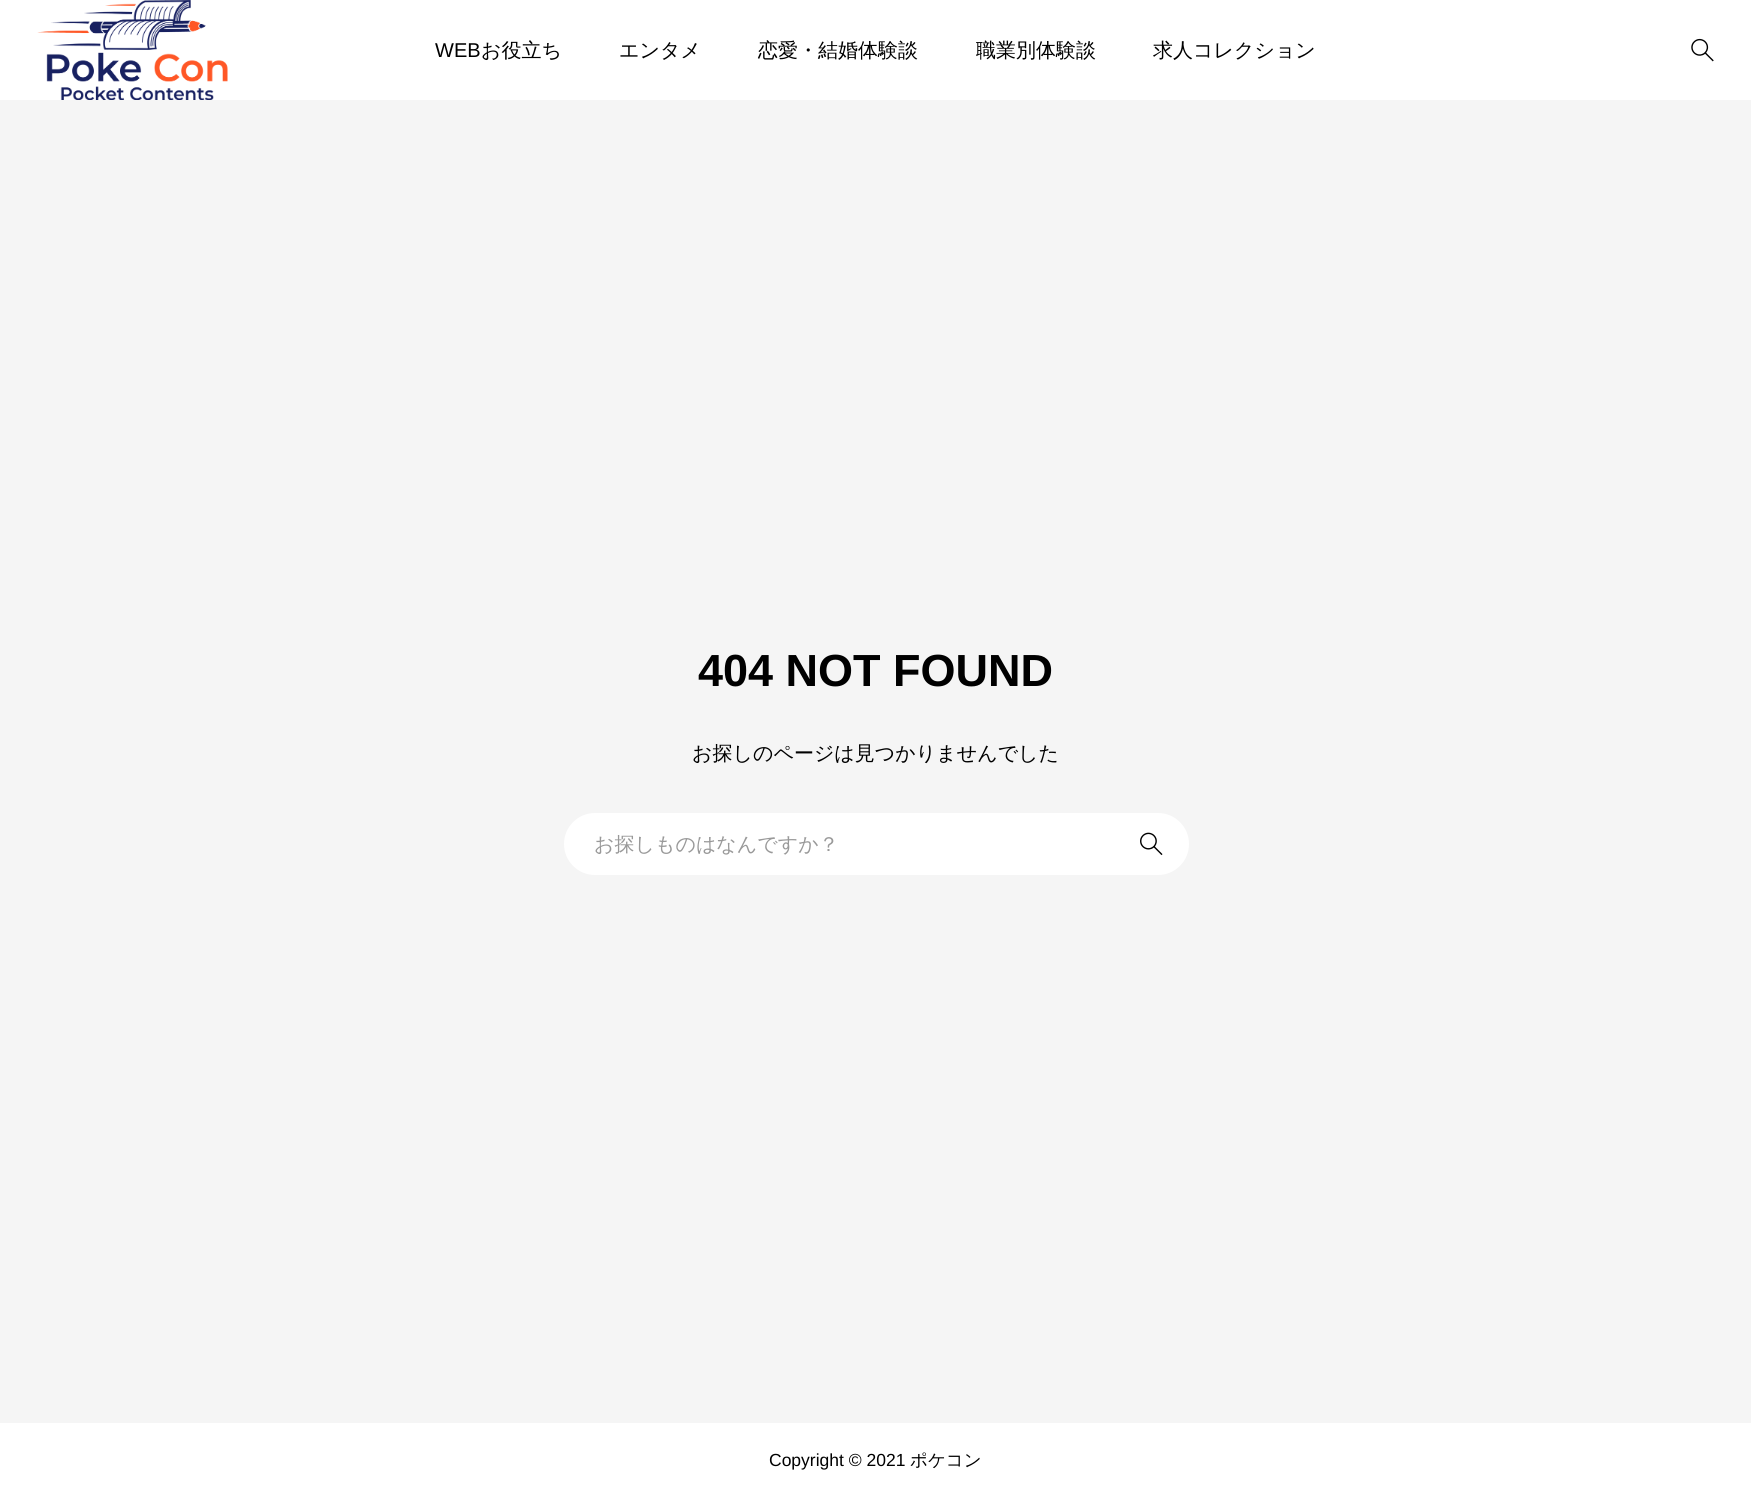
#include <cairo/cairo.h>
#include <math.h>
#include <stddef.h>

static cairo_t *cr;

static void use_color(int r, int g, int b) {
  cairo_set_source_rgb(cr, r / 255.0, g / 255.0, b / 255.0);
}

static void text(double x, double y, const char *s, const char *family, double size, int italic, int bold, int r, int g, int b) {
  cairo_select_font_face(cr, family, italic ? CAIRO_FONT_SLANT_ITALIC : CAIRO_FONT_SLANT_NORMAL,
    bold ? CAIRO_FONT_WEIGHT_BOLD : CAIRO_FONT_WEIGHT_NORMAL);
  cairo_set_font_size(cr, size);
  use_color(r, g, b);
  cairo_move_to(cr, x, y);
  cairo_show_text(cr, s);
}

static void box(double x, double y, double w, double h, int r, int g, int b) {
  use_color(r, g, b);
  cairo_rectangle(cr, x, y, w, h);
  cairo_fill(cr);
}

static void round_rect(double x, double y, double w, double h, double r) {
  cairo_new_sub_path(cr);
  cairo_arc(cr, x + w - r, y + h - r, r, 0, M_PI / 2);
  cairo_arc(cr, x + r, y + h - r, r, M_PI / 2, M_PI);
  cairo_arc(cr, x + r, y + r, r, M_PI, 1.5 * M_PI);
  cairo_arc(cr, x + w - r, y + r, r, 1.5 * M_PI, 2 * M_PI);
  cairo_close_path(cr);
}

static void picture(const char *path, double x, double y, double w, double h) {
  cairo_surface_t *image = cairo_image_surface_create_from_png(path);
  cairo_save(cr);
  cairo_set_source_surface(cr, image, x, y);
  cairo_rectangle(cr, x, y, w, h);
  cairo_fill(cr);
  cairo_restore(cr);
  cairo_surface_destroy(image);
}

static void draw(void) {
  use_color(255, 255, 255);
  cairo_paint(cr);
  picture("img_01.png", 37, 0, 191, 100);
  picture("img_02.png", 1691, 38, 23, 24);
  box(0, 100, 1751, 1323, 245, 245, 245);
  use_color(255, 255, 255);
  round_rect(564, 813, 625, 62, 31);
  cairo_fill(cr);
  picture("img_03.png", 1140, 832, 23, 24);
  text(435, 57, "WEB", "Liberation Sans", 20, 0, 0, 0, 0, 0);
  text(481, 57, "お役立ち", "WenQuanYi Zen Hei Medium", 20, 0, 0, 0, 0, 0);
  text(619, 57, "エンタメ", "WenQuanYi Zen Hei Medium", 20, 0, 0, 0, 0, 0);
  text(758, 57, "恋愛・結婚体験談", "WenQuanYi Zen Hei Medium", 20, 0, 0, 0, 0, 0);
  text(976, 57, "職業別体験談", "WenQuanYi Zen Hei Medium", 20, 0, 0, 0, 0, 0);
  text(1153, 57, "求人コレクション", "WenQuanYi Zen Hei Medium", 20, 0, 0, 0, 0, 0);
  text(698, 686, "404 NOT FOUND", "Liberation Sans", 45, 0, 1, 0, 0, 0);
  text(692, 760, "お探しのページは見つかりませんでした", "WenQuanYi Zen Hei Medium", 20, 0, 0, 0, 0, 0);
  text(594, 851, "お探しものはなんですか？", "WenQuanYi Zen Hei Medium", 20, 0, 0, 153, 153, 153);
  text(769, 1466, "Copyright © 2021", "Liberation Sans", 17.5, 0, 0, 0, 0, 0);
  text(910, 1466, "ポケコン", "WenQuanYi Zen Hei Medium", 17.5, 0, 0, 0, 0, 0);
}

int main(void) {
  cairo_surface_t *surface = cairo_image_surface_create(CAIRO_FORMAT_RGB24, 1751, 1498);
  cr = cairo_create(surface);
  cairo_font_options_t *options = cairo_font_options_create();
  cairo_font_options_set_hint_metrics(options, CAIRO_HINT_METRICS_OFF);
  cairo_font_options_set_hint_style(options, CAIRO_HINT_STYLE_NONE);
  cairo_set_font_options(cr, options);
  cairo_set_miter_limit(cr, 4);
  draw();
  cairo_surface_write_to_png(surface, "out.png");
  cairo_font_options_destroy(options);
  cairo_destroy(cr);
  cairo_surface_destroy(surface);
  return 0;
}
